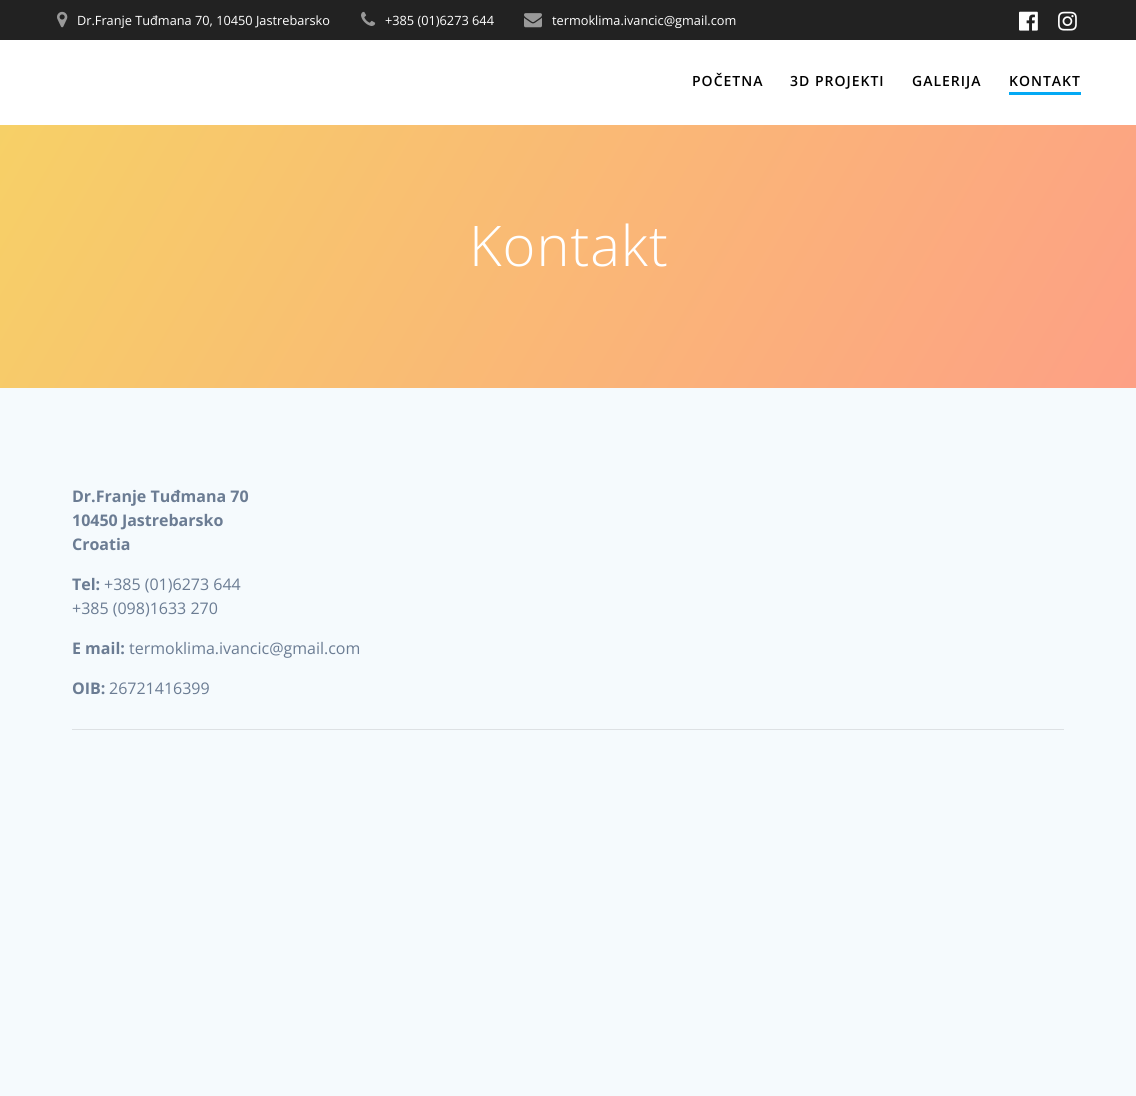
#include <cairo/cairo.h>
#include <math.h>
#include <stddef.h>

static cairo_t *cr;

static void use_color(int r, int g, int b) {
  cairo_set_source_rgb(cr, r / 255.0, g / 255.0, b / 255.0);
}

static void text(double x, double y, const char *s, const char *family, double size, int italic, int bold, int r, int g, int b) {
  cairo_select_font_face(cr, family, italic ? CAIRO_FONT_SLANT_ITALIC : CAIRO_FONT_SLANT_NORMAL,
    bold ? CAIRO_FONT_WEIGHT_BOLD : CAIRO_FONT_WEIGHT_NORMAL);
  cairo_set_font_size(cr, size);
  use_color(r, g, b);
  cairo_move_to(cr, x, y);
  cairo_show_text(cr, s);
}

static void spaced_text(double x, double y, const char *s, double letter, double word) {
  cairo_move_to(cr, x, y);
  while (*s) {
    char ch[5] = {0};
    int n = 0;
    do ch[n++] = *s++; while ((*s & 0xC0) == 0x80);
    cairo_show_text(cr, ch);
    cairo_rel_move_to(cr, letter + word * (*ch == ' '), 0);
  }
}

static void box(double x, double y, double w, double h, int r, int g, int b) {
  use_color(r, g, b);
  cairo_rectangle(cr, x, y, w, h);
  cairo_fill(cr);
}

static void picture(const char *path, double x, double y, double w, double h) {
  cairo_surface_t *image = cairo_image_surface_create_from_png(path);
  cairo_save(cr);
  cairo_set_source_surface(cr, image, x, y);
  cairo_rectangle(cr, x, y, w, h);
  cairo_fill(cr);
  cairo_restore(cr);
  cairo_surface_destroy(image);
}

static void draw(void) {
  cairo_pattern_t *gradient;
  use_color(255, 255, 255);
  cairo_paint(cr);
  box(0, 0, 1136, 40, 34, 34, 34);
  picture("img_01.png", 57, 11, 11, 17);
  picture("img_02.png", 361, 11, 15, 15);
  picture("img_03.png", 524, 13, 18, 15);
  picture("img_04.png", 1019, 11, 19, 20);
  picture("img_05.png", 1058, 11, 19, 20);
  box(1009, 92, 72, 3, 3, 169, 244);
  gradient = cairo_pattern_create_linear(58, -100, 1078, 488);
  cairo_pattern_add_color_stop_rgba(gradient, 0, 0.965, 0.827, 0.396, 1);
  cairo_pattern_add_color_stop_rgba(gradient, 1, 0.992, 0.627, 0.522, 1);
  cairo_set_source(cr, gradient);
  cairo_pattern_destroy(gradient);
  cairo_rectangle(cr, 0, 125, 1136, 263);
  cairo_fill(cr);
  box(0, 388, 1136, 708, 245, 250, 253);
  box(72, 729, 992, 1, 221, 225, 228);
  text(77, 25, "Dr.Franje Tuđmana 70, 10450 Jastrebarsko", "Open Sans", 12.75, 0, 0, 255, 255, 255);
  text(385, 25, "+385 (01)6273 644", "Open Sans", 12.75, 0, 0, 255, 255, 255);
  text(552, 25, "termoklima.ivancic@gmail.com", "Open Sans", 12.75, 0, 0, 255, 255, 255);
  cairo_select_font_face(cr, "Open Sans SemiBold", CAIRO_FONT_SLANT_NORMAL, CAIRO_FONT_WEIGHT_NORMAL);
  cairo_set_font_size(cr, 14);
  use_color(0, 0, 0);
  spaced_text(692, 86, "POČETNA", 1, 0);
  spaced_text(790, 86, "3D PROJEKTI", 1, 0);
  spaced_text(912, 86, "GALERIJA", 1, 0);
  spaced_text(1009, 86, "KONTAKT", 1, 0);
  cairo_select_font_face(cr, "Open Sans Light", CAIRO_FONT_SLANT_NORMAL, CAIRO_FONT_WEIGHT_NORMAL);
  cairo_set_font_size(cr, 56);
  use_color(255, 255, 255);
  spaced_text(469, 266, "Kontakt", 1, 0);
  text(72, 502, "Dr.Franje Tuđmana 70", "Open Sans", 16, 0, 1, 107, 124, 147);
  text(72, 526, "10450 Jastrebarsko", "Open Sans", 16, 0, 1, 107, 124, 147);
  text(72, 550, "Croatia", "Open Sans", 16, 0, 1, 107, 124, 147);
  text(72, 590, "Tel:", "Open Sans", 16, 0, 1, 107, 124, 147);
  text(104, 590, "+385 (01)6273 644", "Open Sans", 16, 0, 0, 107, 124, 147);
  text(72, 614, "+385 (098)1633 270", "Open Sans", 16, 0, 0, 107, 124, 147);
  text(72, 654, "E mail:", "Open Sans", 16, 0, 1, 107, 124, 147);
  text(129, 654, "termoklima.ivancic@gmail.com", "Open Sans", 16, 0, 0, 107, 124, 147);
  text(72, 694, "OIB:", "Open Sans", 16, 0, 1, 107, 124, 147);
  text(109, 694, "26721416399", "Open Sans", 16, 0, 0, 107, 124, 147);
}

int main(void) {
  cairo_surface_t *surface = cairo_image_surface_create(CAIRO_FORMAT_RGB24, 1136, 1096);
  cr = cairo_create(surface);
  cairo_font_options_t *options = cairo_font_options_create();
  cairo_font_options_set_hint_metrics(options, CAIRO_HINT_METRICS_OFF);
  cairo_font_options_set_hint_style(options, CAIRO_HINT_STYLE_NONE);
  cairo_set_font_options(cr, options);
  cairo_set_miter_limit(cr, 4);
  draw();
  cairo_surface_write_to_png(surface, "out.png");
  cairo_font_options_destroy(options);
  cairo_destroy(cr);
  cairo_surface_destroy(surface);
  return 0;
}
